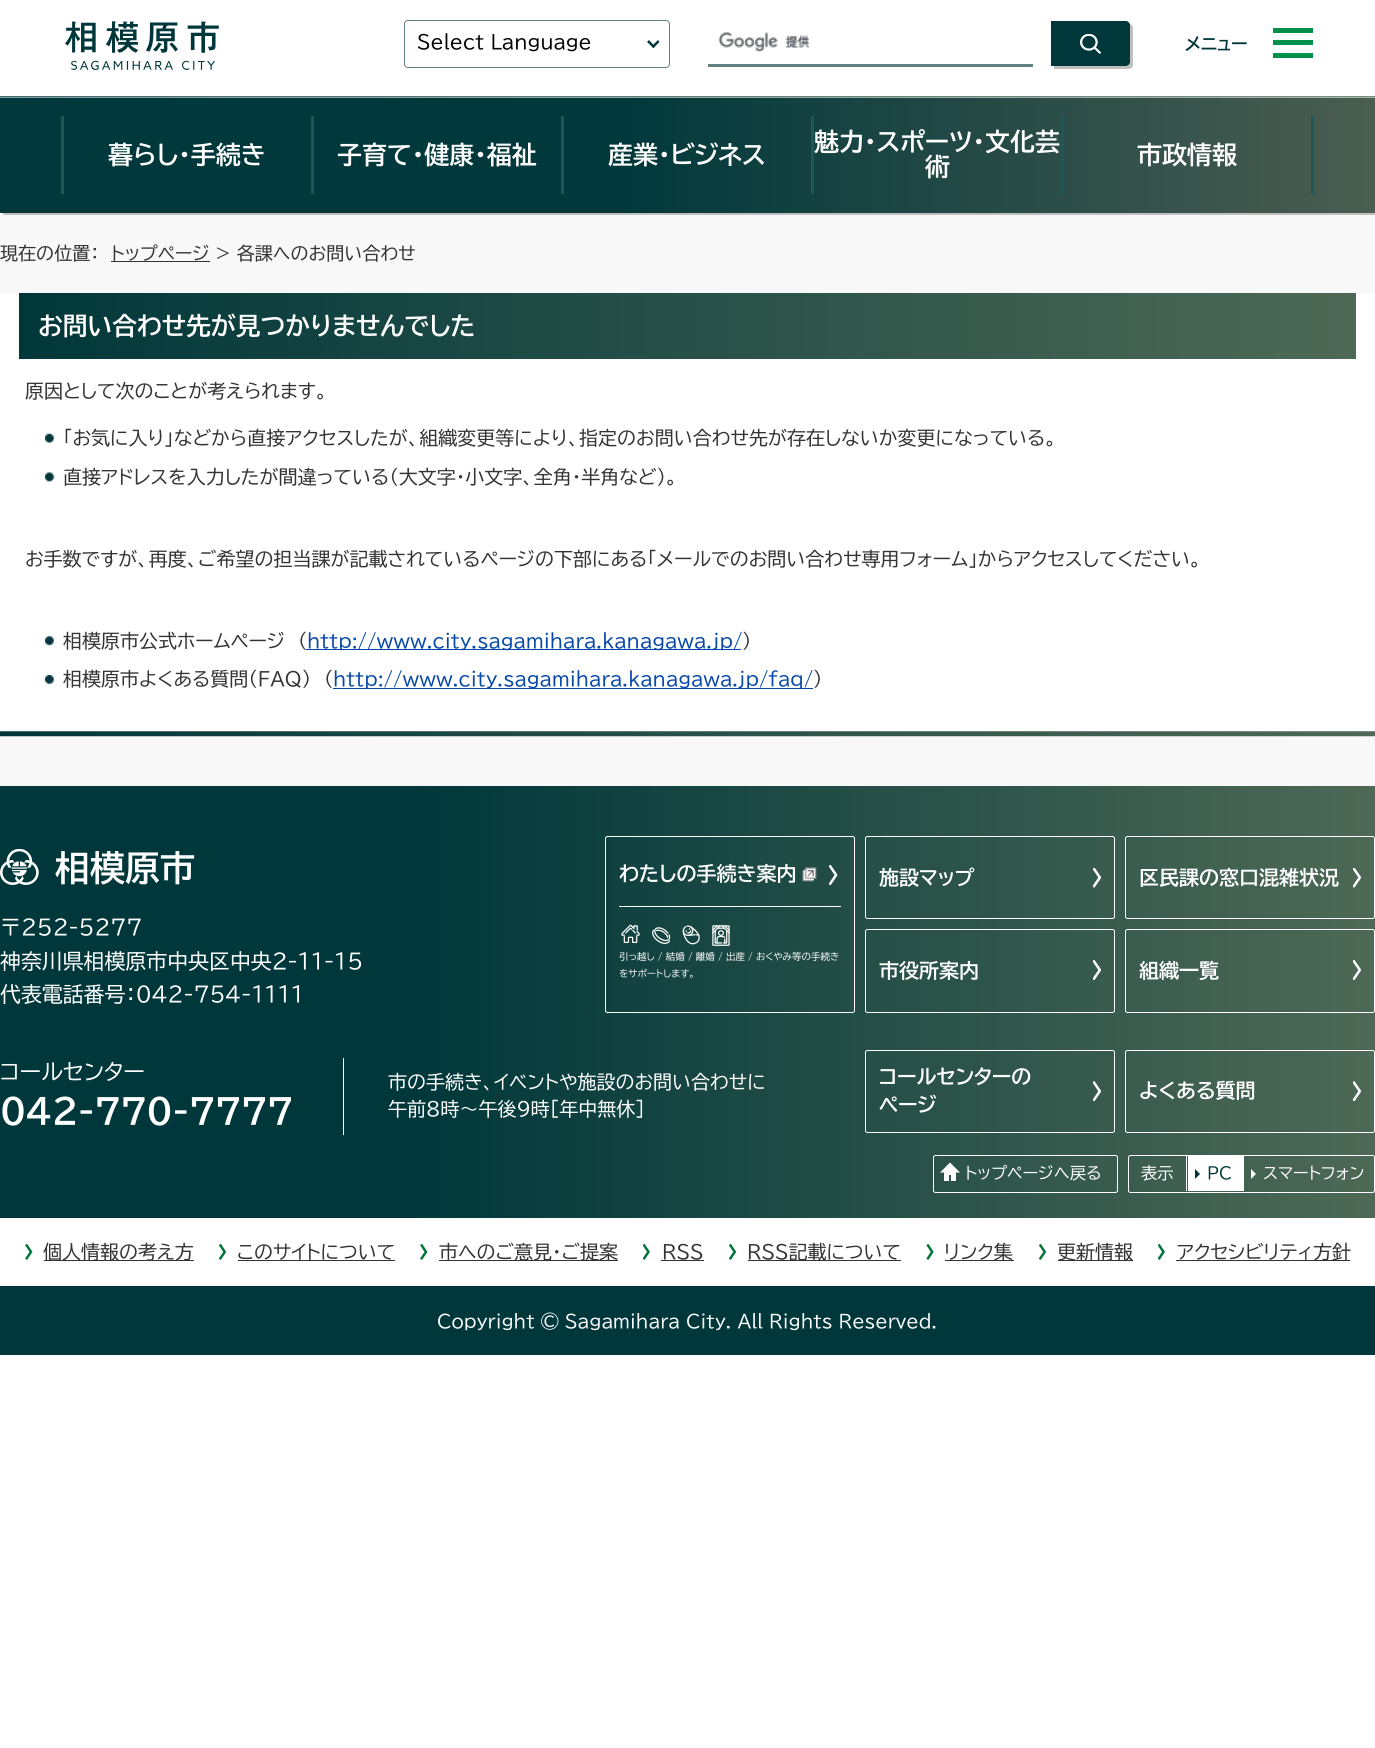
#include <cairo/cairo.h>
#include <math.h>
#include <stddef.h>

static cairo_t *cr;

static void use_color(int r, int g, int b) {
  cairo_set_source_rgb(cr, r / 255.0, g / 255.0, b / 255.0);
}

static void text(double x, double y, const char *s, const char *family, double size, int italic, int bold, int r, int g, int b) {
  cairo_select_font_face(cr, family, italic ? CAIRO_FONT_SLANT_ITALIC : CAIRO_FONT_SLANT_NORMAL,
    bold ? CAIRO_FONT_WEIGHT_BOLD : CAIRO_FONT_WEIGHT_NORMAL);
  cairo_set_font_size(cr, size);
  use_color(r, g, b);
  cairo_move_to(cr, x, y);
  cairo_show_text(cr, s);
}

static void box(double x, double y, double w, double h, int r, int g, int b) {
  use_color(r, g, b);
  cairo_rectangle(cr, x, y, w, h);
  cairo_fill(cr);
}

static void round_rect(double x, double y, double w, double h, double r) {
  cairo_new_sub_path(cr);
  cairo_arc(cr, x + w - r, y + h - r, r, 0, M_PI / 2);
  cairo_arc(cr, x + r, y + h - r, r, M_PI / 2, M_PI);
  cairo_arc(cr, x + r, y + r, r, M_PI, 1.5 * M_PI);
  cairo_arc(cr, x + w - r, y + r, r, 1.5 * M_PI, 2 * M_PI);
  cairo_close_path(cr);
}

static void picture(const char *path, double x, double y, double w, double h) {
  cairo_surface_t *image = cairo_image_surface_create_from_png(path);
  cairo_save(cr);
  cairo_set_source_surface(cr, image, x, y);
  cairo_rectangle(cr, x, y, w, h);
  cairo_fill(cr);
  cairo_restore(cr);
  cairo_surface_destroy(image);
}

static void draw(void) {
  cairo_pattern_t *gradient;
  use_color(255, 255, 255);
  cairo_paint(cr);
  picture("img_01.png", 0, 96, 1375, 2);
  picture("img_02.png", 65, 21, 154, 49);
  round_rect(404.5, 20.5, 265, 47, 3.5);
  use_color(96, 130, 131);
  cairo_set_line_width(cr, 1);
  cairo_stroke(cr);
  use_color(0, 55, 58);
  cairo_new_path(cr);
  cairo_move_to(cr, 659.5, 42);
  cairo_line_to(cr, 653.5, 48);
  cairo_line_to(cr, 651.5, 46.5);
  cairo_line_to(cr, 658, 40);
  cairo_close_path(cr);
  cairo_fill(cr);
  cairo_new_path(cr);
  cairo_move_to(cr, 655, 46.5);
  cairo_line_to(cr, 653.5, 48);
  cairo_line_to(cr, 647, 42);
  cairo_line_to(cr, 649, 40);
  cairo_close_path(cr);
  cairo_fill(cr);
  picture("img_03.png", 718, 32, 92, 20);
  box(708, 64, 325, 3, 96, 130, 131);
  use_color(191, 191, 191);
  cairo_new_path(cr);
  cairo_move_to(cr, 1054, 66);
  cairo_line_to(cr, 1054, 69);
  cairo_line_to(cr, 1129, 69);
  cairo_curve_to(cr, 1131, 69, 1133, 67, 1133, 65);
  cairo_line_to(cr, 1133, 28);
  cairo_curve_to(cr, 1133, 26, 1132, 25, 1130, 24);
  cairo_line_to(cr, 1130, 56);
  cairo_curve_to(cr, 1130, 59, 1131, 66, 1126, 66);
  cairo_close_path(cr);
  cairo_fill(cr);
  use_color(0, 55, 58);
  cairo_new_path(cr);
  cairo_move_to(cr, 1051, 21);
  cairo_line_to(cr, 1126, 21);
  cairo_curve_to(cr, 1128, 21, 1130, 23, 1130, 25);
  cairo_line_to(cr, 1130, 62);
  cairo_curve_to(cr, 1130, 64, 1128, 66, 1126, 66);
  cairo_line_to(cr, 1051, 66);
  cairo_close_path(cr);
  cairo_fill(cr);
  picture("img_04.png", 1080, 34, 21, 20);
  box(1273, 28, 40, 5, 0, 146, 76);
  box(1273, 53, 40, 5, 0, 146, 76);
  box(1273, 40, 40, 5, 0, 146, 76);
  use_color(191, 191, 191);
  cairo_new_path(cr);
  cairo_move_to(cr, 3, 212);
  cairo_line_to(cr, 3, 215);
  cairo_line_to(cr, 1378, 215);
  cairo_line_to(cr, 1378, 100);
  cairo_line_to(cr, 1375, 100);
  cairo_line_to(cr, 1375, 212);
  cairo_close_path(cr);
  cairo_fill(cr);
  gradient = cairo_pattern_create_linear(0, 155, 1375, 155);
  cairo_pattern_add_color_stop_rgba(gradient, 0.45, 0.004, 0.22, 0.231, 1);
  cairo_pattern_add_color_stop_rgba(gradient, 1, 0.294, 0.365, 0.318, 1);
  cairo_set_source(cr, gradient);
  cairo_pattern_destroy(gradient);
  cairo_rectangle(cr, 0, 98, 1375, 115);
  cairo_fill(cr);
  box(61, 116, 3, 78, 27, 88, 91);
  box(311, 116, 3, 78, 27, 88, 91);
  box(561, 116, 3, 78, 27, 88, 91);
  box(811, 116, 3, 78, 27, 88, 91);
  box(1061, 116, 3, 78, 27, 88, 91);
  box(1311, 116, 3, 78, 27, 88, 91);
  box(0, 215, 1375, 78, 248, 248, 248);
  box(111, 261, 99, 1, 51, 51, 51);
  box(0, 736, 1375, 50, 248, 248, 248);
  picture("img_05.png", 0, 731, 1375, 6);
  gradient = cairo_pattern_create_linear(19, 326, 1356, 326);
  cairo_pattern_add_color_stop_rgba(gradient, 0, 0.004, 0.216, 0.227, 1);
  cairo_pattern_add_color_stop_rgba(gradient, 1, 0.306, 0.412, 0.337, 1);
  cairo_set_source(cr, gradient);
  cairo_pattern_destroy(gradient);
  cairo_rectangle(cr, 19, 293, 1337, 66);
  cairo_fill(cr);
  picture("img_06.png", 45, 433, 9, 10);
  picture("img_07.png", 45, 472, 9, 10);
  picture("img_08.png", 45, 636, 9, 10);
  box(306, 649, 435, 1, 5, 71, 169);
  picture("img_09.png", 45, 675, 9, 9);
  box(333, 688, 480, 1, 5, 71, 169);
  gradient = cairo_pattern_create_linear(0, 1071, 1375, 1071);
  cairo_pattern_add_color_stop_rgba(gradient, 0.3, 0, 0.216, 0.227, 1);
  cairo_pattern_add_color_stop_rgba(gradient, 1, 0.306, 0.412, 0.337, 1);
  cairo_set_source(cr, gradient);
  cairo_pattern_destroy(gradient);
  cairo_rectangle(cr, 0, 786, 1375, 432);
  cairo_fill(cr);
  picture("img_10.png", 0, 849, 39, 36);
  round_rect(605.5, 836.5, 249, 176, 2);
  use_color(255, 255, 255);
  cairo_stroke(cr);
  picture("img_11.png", 829, 865, 9, 20);
  box(619, 906, 222, 1, 255, 255, 255);
  picture("img_12.png", 802, 867, 15, 15);
  picture("img_13.png", 621, 924, 109, 22);
  picture("img_14.png", 1093, 868, 8, 20);
  round_rect(865.5, 836.5, 249, 82, 2);
  cairo_stroke(cr);
  picture("img_15.png", 1353, 868, 8, 20);
  round_rect(1125.5, 836.5, 249, 82, 2);
  cairo_stroke(cr);
  picture("img_16.png", 1093, 960, 8, 20);
  round_rect(865.5, 929.5, 249, 83, 2);
  cairo_stroke(cr);
  picture("img_17.png", 1353, 960, 8, 20);
  round_rect(1125.5, 929.5, 249, 83, 2);
  cairo_stroke(cr);
  box(343, 1058, 1, 77, 255, 255, 255);
  picture("img_18.png", 1093, 1081, 8, 20);
  round_rect(865.5, 1050.5, 249, 82, 2);
  cairo_stroke(cr);
  picture("img_19.png", 1353, 1081, 8, 20);
  round_rect(1125.5, 1050.5, 249, 82, 2);
  cairo_stroke(cr);
  round_rect(933.5, 1155.5, 184, 37, 2);
  cairo_stroke(cr);
  box(944, 1172, 12, 3, 255, 255, 255);
  box(951, 1170, 5, 11, 255, 255, 255);
  box(944, 1170, 5, 11, 255, 255, 255);
  cairo_new_path(cr);
  cairo_move_to(cr, 960, 1172.5);
  cairo_line_to(cr, 940, 1172.5);
  cairo_line_to(cr, 950, 1162.5);
  cairo_close_path(cr);
  cairo_fill(cr);
  round_rect(1128.5, 1155.5, 246, 37, 2);
  cairo_stroke(cr);
  box(1186, 1156, 1, 35, 255, 255, 255);
  box(1188, 1156, 56, 35, 255, 255, 255);
  use_color(0, 55, 58);
  cairo_new_path(cr);
  cairo_move_to(cr, 1195, 1179);
  cairo_line_to(cr, 1195, 1169);
  cairo_line_to(cr, 1200, 1174);
  cairo_close_path(cr);
  cairo_fill(cr);
  use_color(255, 255, 255);
  cairo_new_path(cr);
  cairo_move_to(cr, 1251, 1179);
  cairo_line_to(cr, 1251, 1169);
  cairo_line_to(cr, 1256, 1174);
  cairo_close_path(cr);
  cairo_fill(cr);
  picture("img_20.png", 25, 1244, 8, 16);
  box(44, 1260, 150, 1, 51, 51, 51);
  picture("img_21.png", 219, 1244, 7, 16);
  box(238, 1260, 157, 1, 51, 51, 51);
  picture("img_20.png", 420, 1244, 8, 16);
  box(439, 1260, 179, 1, 51, 51, 51);
  picture("img_22.png", 643, 1244, 7, 16);
  box(661, 1260, 43, 1, 51, 51, 51);
  picture("img_21.png", 729, 1244, 7, 16);
  box(748, 1260, 153, 1, 51, 51, 51);
  picture("img_23.png", 926, 1244, 8, 16);
  box(945, 1260, 69, 1, 51, 51, 51);
  picture("img_21.png", 1039, 1244, 7, 16);
  box(1058, 1260, 75, 1, 51, 51, 51);
  picture("img_22.png", 1158, 1244, 7, 16);
  box(1176, 1260, 174, 1, 51, 51, 51);
  box(0, 1286, 1375, 69, 0, 55, 58);
  text(417, 49, "Select Language", "BIZ UDPGothic", 19, 0, 0, 0, 0, 0);
  text(1185, 50, "メニュー", "BIZ UDPGothic", 17, 0, 1, 0, 55, 58);
  text(108, 164, "暮らし・手続き", "BIZ UDPGothic", 25, 0, 1, 255, 255, 255);
  text(337, 164, "子育て・健康・福祉", "BIZ UDPGothic", 25, 0, 1, 255, 255, 255);
  text(608, 164, "産業・ビジネス", "BIZ UDPGothic", 25, 0, 1, 255, 255, 255);
  text(814, 151, "魅力・スポーツ・文化芸", "BIZ UDPGothic", 25, 0, 1, 255, 255, 255);
  text(925, 176, "術", "BIZ UDPGothic", 25, 0, 1, 255, 255, 255);
  text(1137, 164, "市政情報", "BIZ UDPGothic", 25, 0, 1, 255, 255, 255);
  text(0, 260, "現在の位置：", "BIZ UDPGothic", 18.05, 0, 0, 51, 51, 51);
  text(111, 260, "トップページ > 各課へのお問い合わせ", "BIZ UDPGothic", 18.05, 0, 0, 51, 51, 51);
  text(38, 335, "お問い合わせ先が見つかりませんでした", "BIZ UDPGothic", 24.75, 0, 1, 255, 255, 255);
  text(25, 398, "原因として次のことが考えられます。", "BIZ UDPGothic", 19, 0, 0, 51, 51, 51);
  text(63, 445, "「お気に入り」などから直接アクセスしたが、組織変更等により、指定のお問い合わせ先が存在しないか変更になっている。", "BIZ UDPGothic", 19, 0, 0, 51, 51, 51);
  text(63, 484, "直接アドレスを入力したが間違っている（大文字・小文字、全角・半角など）。", "BIZ UDPGothic", 19, 0, 0, 51, 51, 51);
  text(25, 566, "お手数ですが、再度、ご希望の担当課が記載されているページの下部にある「メールでのお問い合わせ専用フォーム」からアクセスしてください。", "BIZ UDPGothic", 19, 0, 0, 51, 51, 51);
  text(63, 648, "相模原市公式ホームページ　（", "BIZ UDPGothic", 19, 0, 0, 51, 51, 51);
  text(307, 648, "http://www.city.sagamihara.kanagawa.jp/", "BIZ UDPGothic", 19, 0, 0, 5, 71, 169);
  text(742, 648, "）", "BIZ UDPGothic", 19, 0, 0, 51, 51, 51);
  text(63, 686, "相模原市よくある質問（FAQ）　（", "BIZ UDPGothic", 19, 0, 0, 51, 51, 51);
  text(333, 686, "http://www.city.sagamihara.kanagawa.jp/faq/", "BIZ UDPGothic", 19, 0, 0, 5, 71, 169);
  text(813, 686, "）", "BIZ UDPGothic", 19, 0, 0, 51, 51, 51);
  text(55, 881, "相模原市", "BIZ UDPGothic", 35, 0, 1, 255, 255, 255);
  text(0, 935, "〒252-5277", "BIZ UDPGothic", 20.9, 0, 0, 255, 255, 255);
  text(0, 969, "神奈川県相模原市中央区中央2-11-15", "BIZ UDPGothic", 20.9, 0, 0, 255, 255, 255);
  text(0, 1002, "代表電話番号：042-754-1111", "BIZ UDPGothic", 20.9, 0, 0, 255, 255, 255);
  text(619, 881, "わたしの手続き案内", "BIZ UDPGothic", 20, 0, 1, 255, 255, 255);
  text(619, 960, "引っ越し / 結婚 / 離婚 / 出産 / おくやみ等の手続き", "BIZ UDPGothic", 9.5, 0, 0, 255, 255, 255);
  text(619, 977, "をサポートします。", "BIZ UDPGothic", 9.5, 0, 0, 255, 255, 255);
  text(879, 885, "施設マップ", "BIZ UDPGothic", 20, 0, 1, 255, 255, 255);
  text(1139, 885, "区民課の窓口混雑状況", "BIZ UDPGothic", 20, 0, 1, 255, 255, 255);
  text(879, 978, "市役所案内", "BIZ UDPGothic", 20, 0, 1, 255, 255, 255);
  text(1139, 978, "組織一覧", "BIZ UDPGothic", 20, 0, 1, 255, 255, 255);
  text(0, 1080, "コールセンター", "BIZ UDPGothic", 22.25, 0, 0, 255, 255, 255);
  text(0, 1124, "042-770-7777", "BIZ UDPGothic", 34.25, 0, 1, 255, 255, 255);
  text(388, 1089, "市の手続き、イベントや施設のお問い合わせに", "BIZ UDPGothic", 19, 0, 0, 255, 255, 255);
  text(388, 1116, "午前8時～午後9時[年中無休]", "BIZ UDPGothic", 19, 0, 0, 255, 255, 255);
  text(879, 1084, "コールセンターの", "BIZ UDPGothic", 20, 0, 1, 255, 255, 255);
  text(879, 1112, "ページ", "BIZ UDPGothic", 20, 0, 1, 255, 255, 255);
  text(1139, 1098, "よくある質問", "BIZ UDPGothic", 20, 0, 1, 255, 255, 255);
  text(965, 1179, "トップページへ戻る", "BIZ UDPGothic", 16.25, 0, 0, 255, 255, 255);
  text(1141, 1179, "表示", "BIZ UDPGothic", 16.25, 0, 0, 255, 255, 255);
  text(1207, 1179, "PC", "BIZ UDPGothic", 16.25, 0, 0, 0, 55, 58);
  text(1263, 1179, "スマートフォン", "BIZ UDPGothic", 16.25, 0, 0, 255, 255, 255);
  text(43, 1259, "個人情報の考え方", "BIZ UDPGothic", 19, 0, 0, 51, 51, 51);
  text(237, 1259, "このサイトについて", "BIZ UDPGothic", 19, 0, 0, 51, 51, 51);
  text(439, 1259, "市へのご意見・ご提案", "BIZ UDPGothic", 19, 0, 0, 51, 51, 51);
  text(662, 1259, "RSS", "BIZ UDPGothic", 19, 0, 0, 51, 51, 51);
  text(747, 1259, "RSS記載について", "BIZ UDPGothic", 19, 0, 0, 51, 51, 51);
  text(944, 1259, "リンク集", "BIZ UDPGothic", 19, 0, 0, 51, 51, 51);
  text(1057, 1259, "更新情報", "BIZ UDPGothic", 19, 0, 0, 51, 51, 51);
  text(1177, 1259, "アクセシビリティ方針", "BIZ UDPGothic", 19, 0, 0, 51, 51, 51);
  text(437, 1328, "Copyright © Sagamihara City. All Rights Reserved.", "BIZ UDPGothic", 18.05, 0, 0, 255, 255, 255);
}

int main(void) {
  cairo_surface_t *surface = cairo_image_surface_create(CAIRO_FORMAT_RGB24, 1375, 1748);
  cr = cairo_create(surface);
  cairo_font_options_t *options = cairo_font_options_create();
  cairo_font_options_set_hint_metrics(options, CAIRO_HINT_METRICS_OFF);
  cairo_font_options_set_hint_style(options, CAIRO_HINT_STYLE_NONE);
  cairo_set_font_options(cr, options);
  cairo_set_miter_limit(cr, 4);
  draw();
  cairo_surface_write_to_png(surface, "out.png");
  cairo_font_options_destroy(options);
  cairo_destroy(cr);
  cairo_surface_destroy(surface);
  return 0;
}
